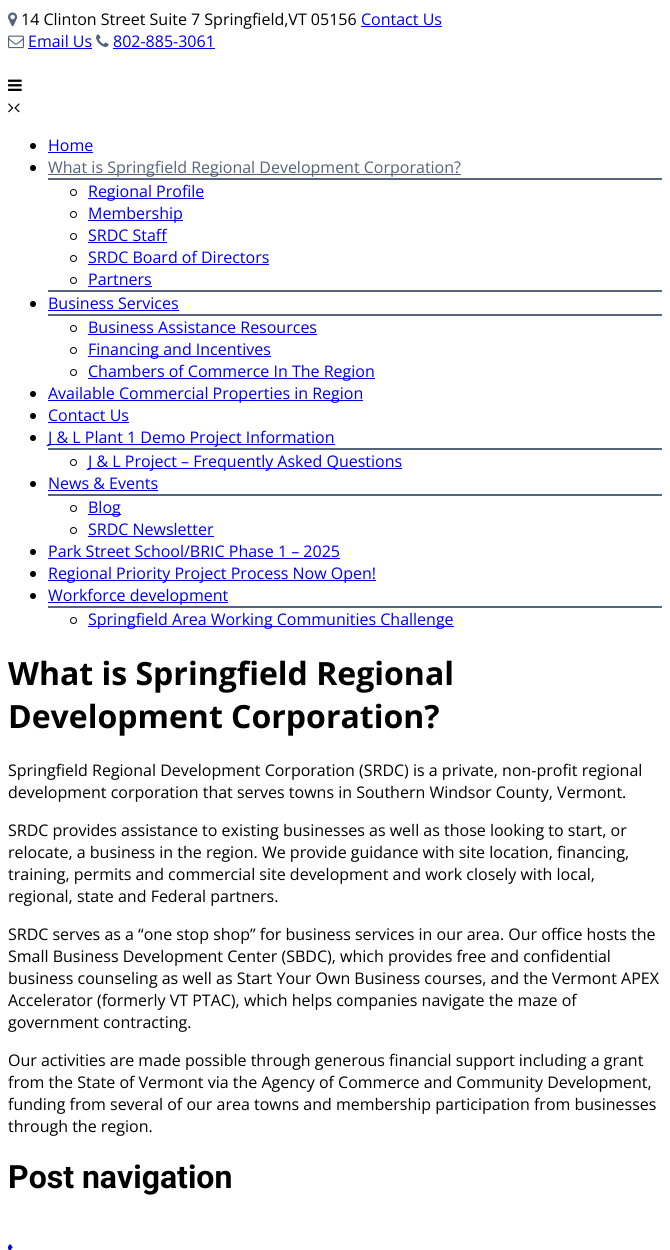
#include <cairo/cairo.h>
#include <math.h>
#include <stddef.h>

static cairo_t *cr;

static void use_color(int r, int g, int b) {
  cairo_set_source_rgb(cr, r / 255.0, g / 255.0, b / 255.0);
}

static void text(double x, double y, const char *s, const char *family, double size, int italic, int bold, int r, int g, int b) {
  cairo_select_font_face(cr, family, italic ? CAIRO_FONT_SLANT_ITALIC : CAIRO_FONT_SLANT_NORMAL,
    bold ? CAIRO_FONT_WEIGHT_BOLD : CAIRO_FONT_WEIGHT_NORMAL);
  cairo_set_font_size(cr, size);
  use_color(r, g, b);
  cairo_move_to(cr, x, y);
  cairo_show_text(cr, s);
}

static void box(double x, double y, double w, double h, int r, int g, int b) {
  use_color(r, g, b);
  cairo_rectangle(cr, x, y, w, h);
  cairo_fill(cr);
}

static void picture(const char *path, double x, double y, double w, double h) {
  cairo_surface_t *image = cairo_image_surface_create_from_png(path);
  cairo_save(cr);
  cairo_set_source_surface(cr, image, x, y);
  cairo_rectangle(cr, x, y, w, h);
  cairo_fill(cr);
  cairo_restore(cr);
  cairo_surface_destroy(image);
}

static void draw(void) {
  use_color(255, 255, 255);
  cairo_paint(cr);
  picture("img_01.png", 8, 12, 10, 15);
  box(361, 26, 81, 1, 0, 0, 238);
  picture("img_02.png", 8, 35, 16, 14);
  box(28, 48, 64, 1, 0, 0, 238);
  picture("img_03.png", 96, 34, 13, 13);
  box(113, 48, 102, 1, 0, 0, 238);
  picture("img_04.png", 8, 79, 14, 12);
  picture("img_05.png", 8, 103, 6, 10);
  picture("img_06.png", 14, 103, 6, 10);
  use_color(0, 0, 0);
  cairo_arc(cr, 33, 146, 3, 0, 2 * M_PI);
  cairo_fill(cr);
  box(48, 152, 45, 1, 0, 0, 238);
  box(48, 290, 614, 2, 86, 99, 126);
  use_color(0, 0, 0);
  cairo_arc(cr, 33, 168, 3, 0, 2 * M_PI);
  cairo_fill(cr);
  box(48, 174, 413, 1, 86, 99, 126);
  box(48, 178, 614, 2, 86, 99, 126);
  cairo_arc(cr, 73.5, 192.5, 3, 0, 2 * M_PI);
  use_color(0, 0, 0);
  cairo_set_line_width(cr, 1);
  cairo_stroke(cr);
  box(88, 198, 116, 1, 0, 0, 238);
  cairo_arc(cr, 73.5, 214.5, 3, 0, 2 * M_PI);
  use_color(0, 0, 0);
  cairo_stroke(cr);
  box(88, 220, 95, 1, 0, 0, 238);
  cairo_arc(cr, 73.5, 236.5, 3, 0, 2 * M_PI);
  use_color(0, 0, 0);
  cairo_stroke(cr);
  box(88, 242, 79, 1, 0, 0, 238);
  cairo_arc(cr, 73.5, 258.5, 3, 0, 2 * M_PI);
  use_color(0, 0, 0);
  cairo_stroke(cr);
  box(88, 264, 181, 1, 0, 0, 238);
  cairo_arc(cr, 73.5, 280.5, 3, 0, 2 * M_PI);
  use_color(0, 0, 0);
  cairo_stroke(cr);
  box(88, 286, 64, 1, 0, 0, 238);
  use_color(0, 0, 0);
  cairo_arc(cr, 33, 304, 3, 0, 2 * M_PI);
  cairo_fill(cr);
  box(48, 310, 131, 1, 0, 0, 238);
  box(48, 314, 614, 2, 86, 99, 126);
  cairo_arc(cr, 73.5, 328.5, 3, 0, 2 * M_PI);
  use_color(0, 0, 0);
  cairo_stroke(cr);
  box(88, 334, 229, 1, 0, 0, 238);
  cairo_arc(cr, 73.5, 350.5, 3, 0, 2 * M_PI);
  use_color(0, 0, 0);
  cairo_stroke(cr);
  box(88, 356, 183, 1, 0, 0, 238);
  cairo_arc(cr, 73.5, 372.5, 3, 0, 2 * M_PI);
  use_color(0, 0, 0);
  cairo_stroke(cr);
  box(88, 378, 287, 1, 0, 0, 238);
  use_color(0, 0, 0);
  cairo_arc(cr, 33, 394, 3, 0, 2 * M_PI);
  cairo_fill(cr);
  box(48, 400, 315, 1, 0, 0, 238);
  use_color(0, 0, 0);
  cairo_arc(cr, 33, 416, 3, 0, 2 * M_PI);
  cairo_fill(cr);
  box(48, 422, 81, 1, 0, 0, 238);
  use_color(0, 0, 0);
  cairo_arc(cr, 33, 438, 3, 0, 2 * M_PI);
  cairo_fill(cr);
  box(48, 444, 287, 1, 0, 0, 238);
  box(48, 448, 614, 2, 86, 99, 126);
  cairo_arc(cr, 73.5, 462.5, 3, 0, 2 * M_PI);
  use_color(0, 0, 0);
  cairo_stroke(cr);
  box(88, 468, 314, 1, 0, 0, 238);
  use_color(0, 0, 0);
  cairo_arc(cr, 33, 484, 3, 0, 2 * M_PI);
  cairo_fill(cr);
  box(48, 490, 110, 1, 0, 0, 238);
  box(48, 494, 614, 2, 86, 99, 126);
  cairo_arc(cr, 73.5, 508.5, 3, 0, 2 * M_PI);
  use_color(0, 0, 0);
  cairo_stroke(cr);
  box(88, 514, 33, 1, 0, 0, 238);
  cairo_arc(cr, 73.5, 530.5, 3, 0, 2 * M_PI);
  use_color(0, 0, 0);
  cairo_stroke(cr);
  box(88, 536, 126, 1, 0, 0, 238);
  use_color(0, 0, 0);
  cairo_arc(cr, 33, 552, 3, 0, 2 * M_PI);
  cairo_fill(cr);
  box(48, 558, 292, 1, 0, 0, 238);
  use_color(0, 0, 0);
  cairo_arc(cr, 33, 574, 3, 0, 2 * M_PI);
  cairo_fill(cr);
  box(48, 580, 328, 1, 0, 0, 238);
  use_color(0, 0, 0);
  cairo_arc(cr, 33, 596, 3, 0, 2 * M_PI);
  cairo_fill(cr);
  box(48, 602, 180, 1, 0, 0, 238);
  box(48, 606, 614, 2, 86, 99, 126);
  cairo_arc(cr, 73.5, 620.5, 3, 0, 2 * M_PI);
  use_color(0, 0, 0);
  cairo_stroke(cr);
  box(88, 626, 366, 1, 0, 0, 238);
  picture("img_07.png", 8, 1244, 5, 6);
  text(21, 25, "14 Clinton Street Suite 7 Springfield,VT 05156", "Open Sans", 16, 0, 0, 0, 0, 0);
  text(361, 25, "Contact Us", "Open Sans", 16, 0, 0, 0, 0, 238);
  text(28, 47, "Email Us", "Open Sans", 16, 0, 0, 0, 0, 238);
  text(113, 47, "802-885-3061", "Open Sans", 16, 0, 0, 0, 0, 238);
  text(48, 151, "Home", "Open Sans", 16, 0, 0, 0, 0, 238);
  text(48, 173, "What is Springfield Regional Development Corporation?", "Open Sans", 16, 0, 0, 86, 99, 126);
  text(88, 197, "Regional Profile", "Open Sans", 16, 0, 0, 0, 0, 238);
  text(88, 219, "Membership", "Open Sans", 16, 0, 0, 0, 0, 238);
  text(88, 241, "SRDC Staff", "Open Sans", 16, 0, 0, 0, 0, 238);
  text(88, 263, "SRDC Board of Directors", "Open Sans", 16, 0, 0, 0, 0, 238);
  text(88, 285, "Partners", "Open Sans", 16, 0, 0, 0, 0, 238);
  text(48, 309, "Business Services", "Open Sans", 16, 0, 0, 0, 0, 238);
  text(88, 333, "Business Assistance Resources", "Open Sans", 16, 0, 0, 0, 0, 238);
  text(88, 355, "Financing and Incentives", "Open Sans", 16, 0, 0, 0, 0, 238);
  text(88, 377, "Chambers of Commerce In The Region", "Open Sans", 16, 0, 0, 0, 0, 238);
  text(48, 399, "Available Commercial Properties in Region", "Open Sans", 16, 0, 0, 0, 0, 238);
  text(48, 421, "Contact Us", "Open Sans", 16, 0, 0, 0, 0, 238);
  text(48, 443, "J & L Plant 1 Demo Project Information", "Open Sans", 16, 0, 0, 0, 0, 238);
  text(88, 467, "J & L Project – Frequently Asked Questions", "Open Sans", 16, 0, 0, 0, 0, 238);
  text(48, 489, "News & Events", "Open Sans", 16, 0, 0, 0, 0, 238);
  text(88, 513, "Blog", "Open Sans", 16, 0, 0, 0, 0, 238);
  text(88, 535, "SRDC Newsletter", "Open Sans", 16, 0, 0, 0, 0, 238);
  text(48, 557, "Park Street School/BRIC Phase 1 – 2025", "Open Sans", 16, 0, 0, 0, 0, 238);
  text(48, 579, "Regional Priority Project Process Now Open!", "Open Sans", 16, 0, 0, 0, 0, 238);
  text(48, 601, "Workforce development", "Open Sans", 16, 0, 0, 0, 0, 238);
  text(88, 625, "Springfield Area Working Communities Challenge", "Open Sans", 16, 0, 0, 0, 0, 238);
  text(8, 685, "What is Springfield Regional", "Open Sans", 32, 0, 1, 0, 0, 0);
  text(8, 728, "Development Corporation?", "Open Sans", 32, 0, 1, 0, 0, 0);
  text(8, 776, "Springfield Regional Development Corporation (SRDC) is a private, non-profit regional", "Open Sans", 16, 0, 0, 0, 0, 0);
  text(8, 798, "development corporation that serves towns in Southern Windsor County, Vermont.", "Open Sans", 16, 0, 0, 0, 0, 0);
  text(8, 836, "SRDC provides assistance to existing businesses as well as those looking to start, or", "Open Sans", 16, 0, 0, 0, 0, 0);
  text(8, 858, "relocate, a business in the region. We provide guidance with site location, financing,", "Open Sans", 16, 0, 0, 0, 0, 0);
  text(8, 880, "training, permits and commercial site development and work closely with local,", "Open Sans", 16, 0, 0, 0, 0, 0);
  text(8, 902, "regional, state and Federal partners.", "Open Sans", 16, 0, 0, 0, 0, 0);
  text(8, 940, "SRDC serves as a “one stop shop” for business services in our area. Our office hosts the", "Open Sans", 16, 0, 0, 0, 0, 0);
  text(8, 962, "Small Business Development Center (SBDC), which provides free and confidential", "Open Sans", 16, 0, 0, 0, 0, 0);
  text(8, 984, "business counseling as well as Start Your Own Business courses, and the Vermont APEX", "Open Sans", 16, 0, 0, 0, 0, 0);
  text(8, 1006, "Accelerator (formerly VT PTAC), which helps companies navigate the maze of", "Open Sans", 16, 0, 0, 0, 0, 0);
  text(8, 1028, "government contracting.", "Open Sans", 16, 0, 0, 0, 0, 0);
  text(8, 1066, "Our activities are made possible through generous financial support including a grant", "Open Sans", 16, 0, 0, 0, 0, 0);
  text(8, 1088, "from the State of Vermont via the Agency of Commerce and Community Development,", "Open Sans", 16, 0, 0, 0, 0, 0);
  text(8, 1110, "funding from several of our area towns and membership participation from businesses", "Open Sans", 16, 0, 0, 0, 0, 0);
  text(8, 1132, "through the region.", "Open Sans", 16, 0, 0, 0, 0, 0);
  text(8, 1188, "Post navigation", "Roboto", 32, 0, 1, 0, 0, 0);
}

int main(void) {
  cairo_surface_t *surface = cairo_image_surface_create(CAIRO_FORMAT_RGB24, 670, 1250);
  cr = cairo_create(surface);
  cairo_font_options_t *options = cairo_font_options_create();
  cairo_font_options_set_hint_metrics(options, CAIRO_HINT_METRICS_OFF);
  cairo_font_options_set_hint_style(options, CAIRO_HINT_STYLE_NONE);
  cairo_set_font_options(cr, options);
  cairo_set_miter_limit(cr, 4);
  draw();
  cairo_surface_write_to_png(surface, "out.png");
  cairo_font_options_destroy(options);
  cairo_destroy(cr);
  cairo_surface_destroy(surface);
  return 0;
}
